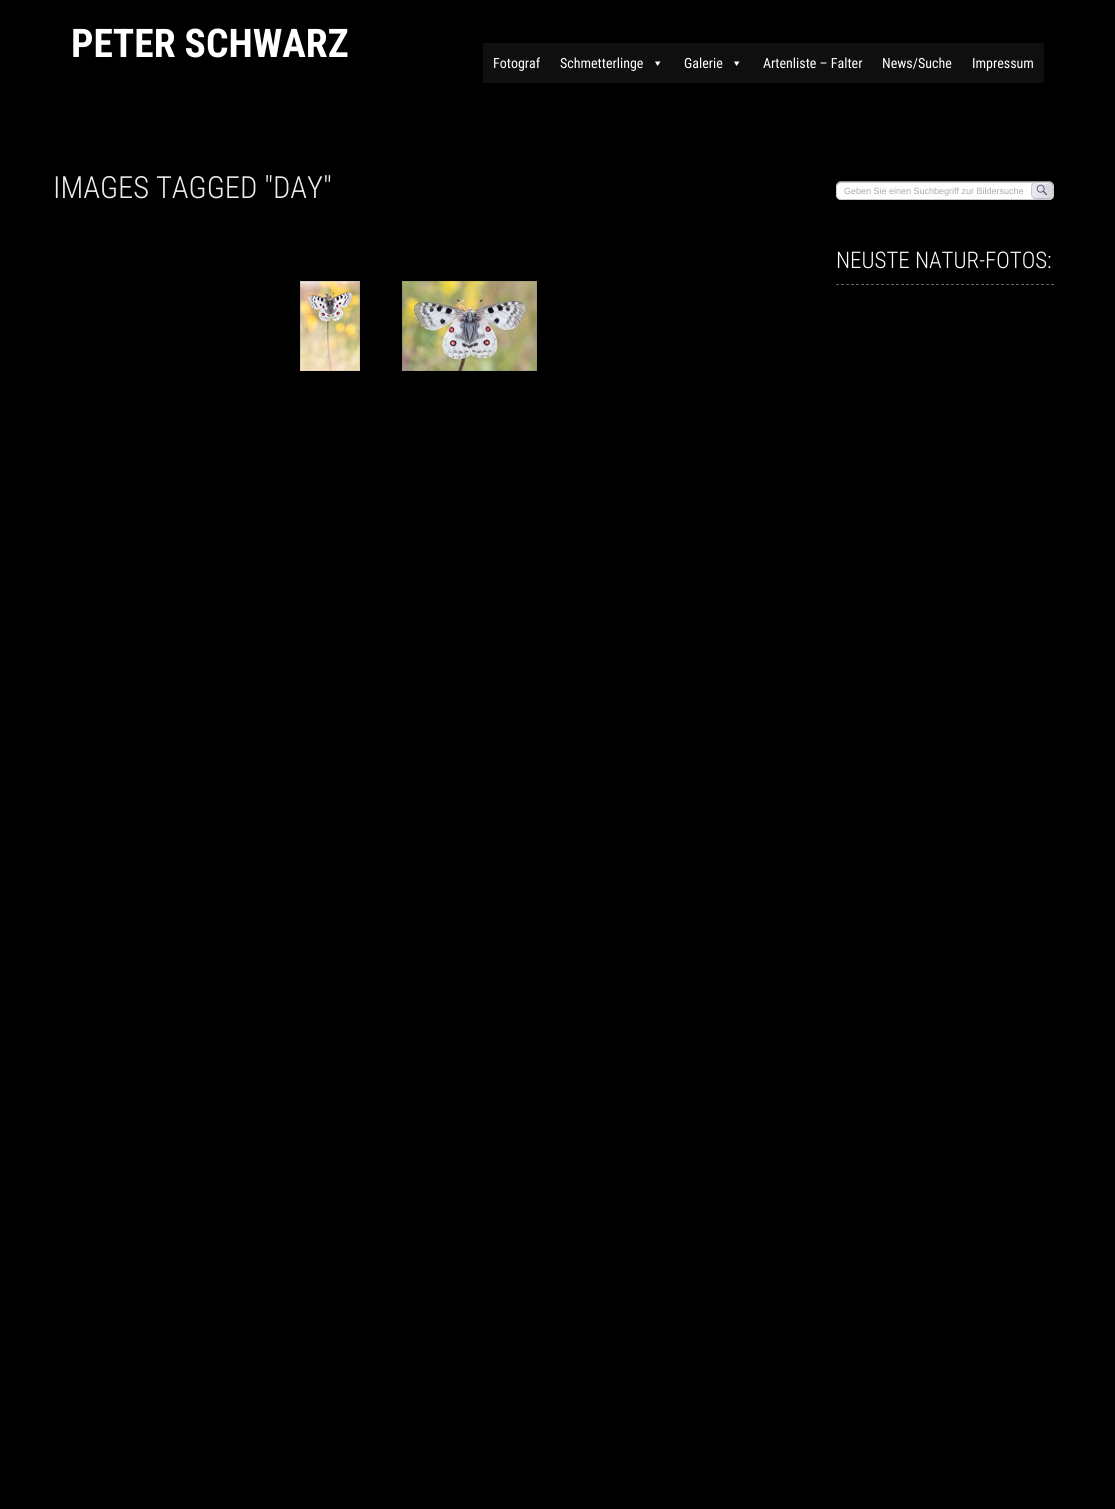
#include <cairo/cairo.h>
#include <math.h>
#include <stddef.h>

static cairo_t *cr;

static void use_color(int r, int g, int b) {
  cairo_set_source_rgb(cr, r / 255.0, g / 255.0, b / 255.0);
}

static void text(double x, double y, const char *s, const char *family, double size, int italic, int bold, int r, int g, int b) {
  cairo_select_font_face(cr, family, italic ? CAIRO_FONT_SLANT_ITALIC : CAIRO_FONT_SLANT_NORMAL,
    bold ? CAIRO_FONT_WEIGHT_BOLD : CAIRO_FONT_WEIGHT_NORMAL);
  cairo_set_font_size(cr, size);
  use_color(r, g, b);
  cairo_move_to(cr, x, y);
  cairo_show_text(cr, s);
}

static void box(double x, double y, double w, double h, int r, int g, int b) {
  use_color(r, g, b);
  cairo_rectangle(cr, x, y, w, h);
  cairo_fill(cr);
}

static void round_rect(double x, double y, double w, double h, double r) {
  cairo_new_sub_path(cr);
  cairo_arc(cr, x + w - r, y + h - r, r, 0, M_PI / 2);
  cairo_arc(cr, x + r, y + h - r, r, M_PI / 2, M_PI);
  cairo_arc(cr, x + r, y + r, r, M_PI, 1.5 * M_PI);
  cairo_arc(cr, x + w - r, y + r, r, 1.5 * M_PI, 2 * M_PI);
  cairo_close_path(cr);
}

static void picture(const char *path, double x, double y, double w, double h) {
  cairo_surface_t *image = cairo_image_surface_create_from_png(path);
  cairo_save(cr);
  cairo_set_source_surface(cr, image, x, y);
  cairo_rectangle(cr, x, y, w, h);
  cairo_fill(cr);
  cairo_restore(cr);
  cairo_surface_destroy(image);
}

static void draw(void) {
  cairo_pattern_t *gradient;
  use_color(0, 0, 0);
  cairo_paint(cr);
  box(483, 43, 561, 40, 15, 15, 15);
  use_color(255, 255, 255);
  cairo_new_path(cr);
  cairo_move_to(cr, 660.5, 61.5);
  cairo_line_to(cr, 657.5, 66);
  cairo_line_to(cr, 655, 61.5);
  cairo_close_path(cr);
  cairo_fill(cr);
  cairo_new_path(cr);
  cairo_move_to(cr, 739.5, 61.5);
  cairo_line_to(cr, 736.5, 66);
  cairo_line_to(cr, 734, 61.5);
  cairo_close_path(cr);
  cairo_fill(cr);
  picture("img_01.png", 295, 281, 72, 90);
  picture("img_02.png", 402, 281, 135, 90);
  round_rect(836.5, 181.5, 217, 18, 4.5);
  use_color(136, 136, 136);
  cairo_set_line_width(cr, 1);
  cairo_stroke(cr);
  use_color(255, 255, 255);
  round_rect(836.5, 182.5, 217, 17, 4.5);
  cairo_fill_preserve(cr);
  use_color(204, 204, 204);
  cairo_stroke(cr);
  cairo_save(cr);
  round_rect(1031, 182, 22, 17, 5);
  cairo_clip(cr);
  gradient = cairo_pattern_create_linear(1032, 191, 1012, 191);
  cairo_pattern_add_color_stop_rgba(gradient, 0, 0.835, 0.835, 0.878, 1);
  cairo_pattern_add_color_stop_rgba(gradient, 1, 0.918, 0.918, 0.961, 1);
  cairo_set_source(cr, gradient);
  cairo_pattern_destroy(gradient);
  cairo_rectangle(cr, 1031, 182, 1, 17);
  cairo_fill(cr);
  gradient = cairo_pattern_create_linear(1052, 191, 1032, 191);
  cairo_pattern_add_color_stop_rgba(gradient, 0, 0.835, 0.835, 0.878, 1);
  cairo_pattern_add_color_stop_rgba(gradient, 1, 0.918, 0.918, 0.961, 1);
  cairo_set_source(cr, gradient);
  cairo_pattern_destroy(gradient);
  cairo_rectangle(cr, 1032, 182, 20, 17);
  cairo_fill(cr);
  cairo_restore(cr);
  cairo_set_source_rgba(cr, 1, 1, 1, 0.5);
  cairo_set_fill_rule(cr, CAIRO_FILL_RULE_EVEN_ODD);
  cairo_new_path(cr);
  cairo_move_to(cr, 1036, 184);
  cairo_line_to(cr, 1046, 184);
  cairo_curve_to(cr, 1052, 184, 1052, 187, 1052, 192);
  cairo_line_to(cr, 1051.5, 195.5);
  cairo_line_to(cr, 1052, 189.5);
  cairo_curve_to(cr, 1052, 181.5, 1048.5, 183, 1042, 183);
  cairo_curve_to(cr, 1038, 183, 1032, 181.5, 1032, 187.5);
  cairo_curve_to(cr, 1032, 185.5, 1033, 184, 1036, 184);
  cairo_close_path(cr);
  cairo_move_to(cr, 1032, 195);
  cairo_line_to(cr, 1032, 192);
  cairo_close_path(cr);
  cairo_fill(cr);
  cairo_new_path(cr);
  cairo_move_to(cr, 1051, 197);
  cairo_curve_to(cr, 1049, 199.5, 1045, 198.5, 1042, 198.5);
  cairo_curve_to(cr, 1039, 198.5, 1035, 199.5, 1033, 197);
  use_color(187, 187, 187);
  cairo_stroke(cr);
  cairo_new_path(cr);
  cairo_move_to(cr, 1033, 197);
  cairo_curve_to(cr, 1031, 195, 1031.5, 192, 1031.5, 189.5);
  cairo_curve_to(cr, 1031.5, 181.5, 1035, 182.5, 1042, 182.5);
  cairo_curve_to(cr, 1045.5, 182.5, 1051.5, 181.5, 1052.5, 186);
  cairo_line_to(cr, 1052.5, 190.5);
  cairo_curve_to(cr, 1052.5, 193, 1053, 195.5, 1051, 197);
  use_color(204, 204, 204);
  cairo_stroke(cr);
  picture("img_03.png", 1036, 184, 12, 12);
  cairo_new_path(cr);
  cairo_move_to(cr, 836, 284.5);
  cairo_line_to(cr, 1054, 284.5);
  use_color(96, 98, 102);
  cairo_set_dash(cr, (double[]){3, 2}, 2, 0);
  cairo_stroke(cr);
  text(71, 57, "PETER SCHWARZ", "Roboto Condensed", 39.5, 0, 1, 255, 255, 255);
  text(493, 68, "Fotograf", "Roboto Condensed", 14, 0, 0, 255, 255, 255);
  text(560, 68, "Schmetterlinge", "Roboto Condensed", 14, 0, 0, 255, 255, 255);
  text(684, 68, "Galerie", "Roboto Condensed", 14, 0, 0, 255, 255, 255);
  text(763, 68, "Artenliste – Falter", "Roboto Condensed", 14, 0, 0, 255, 255, 255);
  text(882, 68, "News/Suche", "Roboto Condensed", 14, 0, 0, 255, 255, 255);
  text(972, 68, "Impressum", "Roboto Condensed", 14, 0, 0, 255, 255, 255);
  text(53, 198, "IMAGES TAGGED \"DAY\"", "Roboto Condensed Light", 30.5, 0, 0, 238, 237, 237);
  text(844, 194, "Geben Sie einen Suchbegriff zur Bildersuche", "Liberation Sans", 9, 0, 0, 170, 170, 170);
  text(836, 268, "NEUSTE NATUR-FOTOS:", "Roboto Condensed Light", 22.9, 0, 0, 255, 255, 255);
}

int main(void) {
  cairo_surface_t *surface = cairo_image_surface_create(CAIRO_FORMAT_RGB24, 1115, 1509);
  cr = cairo_create(surface);
  cairo_font_options_t *options = cairo_font_options_create();
  cairo_font_options_set_hint_metrics(options, CAIRO_HINT_METRICS_OFF);
  cairo_font_options_set_hint_style(options, CAIRO_HINT_STYLE_NONE);
  cairo_set_font_options(cr, options);
  cairo_set_miter_limit(cr, 4);
  draw();
  cairo_surface_write_to_png(surface, "out.png");
  cairo_font_options_destroy(options);
  cairo_destroy(cr);
  cairo_surface_destroy(surface);
  return 0;
}
